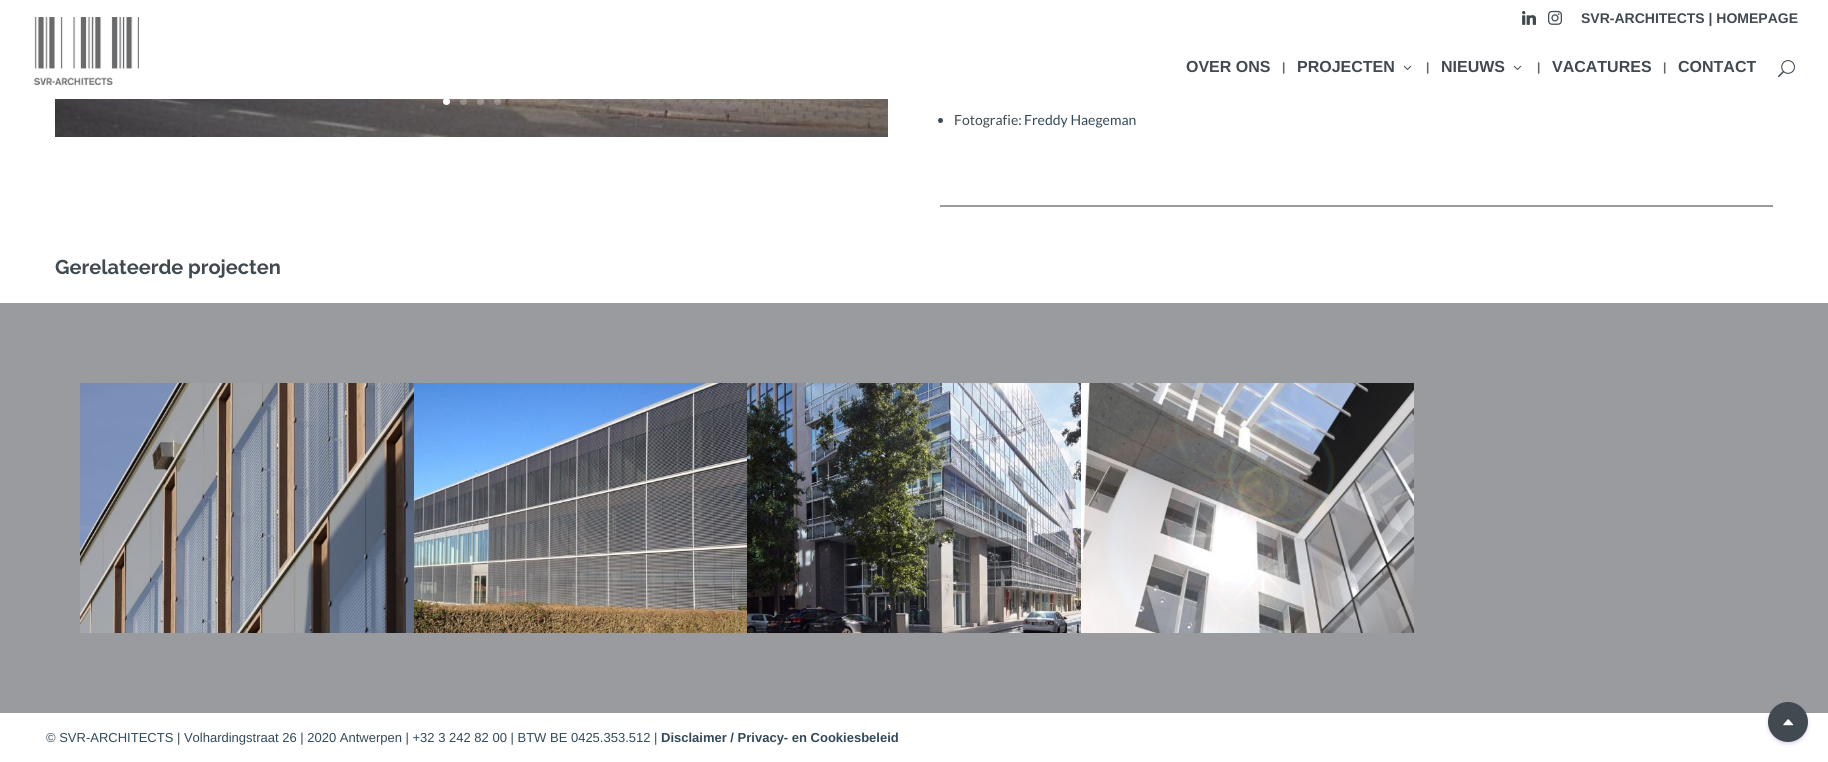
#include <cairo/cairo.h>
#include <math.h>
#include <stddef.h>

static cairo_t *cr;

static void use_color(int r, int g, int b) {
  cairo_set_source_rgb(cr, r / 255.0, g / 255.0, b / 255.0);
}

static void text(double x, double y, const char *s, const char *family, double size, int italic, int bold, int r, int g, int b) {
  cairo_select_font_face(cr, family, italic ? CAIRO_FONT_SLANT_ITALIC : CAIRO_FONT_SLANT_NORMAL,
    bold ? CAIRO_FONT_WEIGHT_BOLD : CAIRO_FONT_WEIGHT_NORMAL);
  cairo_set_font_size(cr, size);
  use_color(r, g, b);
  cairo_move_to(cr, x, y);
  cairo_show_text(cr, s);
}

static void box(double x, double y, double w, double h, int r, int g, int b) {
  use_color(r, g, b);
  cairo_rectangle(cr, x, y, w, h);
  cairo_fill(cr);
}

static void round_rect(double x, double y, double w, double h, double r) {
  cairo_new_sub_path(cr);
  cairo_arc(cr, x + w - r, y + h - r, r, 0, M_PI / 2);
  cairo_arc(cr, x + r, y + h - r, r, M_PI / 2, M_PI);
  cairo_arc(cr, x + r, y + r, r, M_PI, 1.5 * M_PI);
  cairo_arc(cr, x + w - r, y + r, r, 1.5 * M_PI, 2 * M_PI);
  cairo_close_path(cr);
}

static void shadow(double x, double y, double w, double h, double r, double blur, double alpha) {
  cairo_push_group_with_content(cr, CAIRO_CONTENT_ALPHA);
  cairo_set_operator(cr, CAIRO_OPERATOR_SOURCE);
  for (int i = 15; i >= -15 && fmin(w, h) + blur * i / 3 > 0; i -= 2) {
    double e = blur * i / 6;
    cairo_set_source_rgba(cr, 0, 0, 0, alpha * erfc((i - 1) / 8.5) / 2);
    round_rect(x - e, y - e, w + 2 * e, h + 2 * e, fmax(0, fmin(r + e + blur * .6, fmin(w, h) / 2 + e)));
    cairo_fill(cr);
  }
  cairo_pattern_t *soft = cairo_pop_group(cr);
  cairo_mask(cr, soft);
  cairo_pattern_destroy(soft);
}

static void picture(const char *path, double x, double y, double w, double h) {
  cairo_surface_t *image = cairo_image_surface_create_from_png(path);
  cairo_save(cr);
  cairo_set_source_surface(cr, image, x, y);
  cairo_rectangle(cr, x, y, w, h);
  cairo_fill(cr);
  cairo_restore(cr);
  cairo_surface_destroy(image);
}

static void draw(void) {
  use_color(255, 255, 255);
  cairo_paint(cr);
  picture("img_01.png", 1522, 10, 14, 15);
  picture("img_02.png", 1548, 10, 14, 15);
  picture("img_03.png", 34, 17, 105, 68);
  picture("img_04.png", 1403, 65, 9, 5);
  picture("img_04.png", 1513, 65, 9, 5);
  picture("img_05.png", 1778, 60, 17, 18);
  picture("img_06.png", 55, 99, 833, 38);
  use_color(255, 255, 255);
  cairo_arc(cr, 446.5, 101.5, 3.5, 0, 2 * M_PI);
  cairo_fill(cr);
  cairo_set_source_rgba(cr, 1, 1, 1, 0.25);
  cairo_arc(cr, 463.5, 101.5, 3.5, 0, 2 * M_PI);
  cairo_fill(cr);
  cairo_arc(cr, 480.5, 101.5, 3.5, 0, 2 * M_PI);
  cairo_fill(cr);
  cairo_arc(cr, 497.5, 101.5, 3.5, 0, 2 * M_PI);
  cairo_fill(cr);
  use_color(65, 74, 81);
  cairo_arc(cr, 940.5, 120.5, 2.5, 0, 2 * M_PI);
  cairo_fill(cr);
  box(940, 205, 833, 2, 153, 155, 158);
  box(0, 303, 1828, 410, 153, 155, 158);
  picture("img_07.png", 80, 383, 334, 250);
  picture("img_08.png", 414, 383, 333, 250);
  picture("img_09.png", 747, 383, 334, 250);
  picture("img_10.png", 1081, 383, 333, 250);
  use_color(108, 46, 185);
  shadow(1768, 704, 40, 40, 20, 2, 0.2);
  use_color(65, 74, 81);
  cairo_arc(cr, 1788, 722, 20, 0, 2 * M_PI);
  cairo_fill(cr);
  picture("img_11.png", 1783, 719, 11, 7);
  text(1581, 23, "SVR-ARCHITECTS | HOMEPAGE", "Liberation Sans", 14, 0, 1, 65, 74, 81);
  text(1186, 72, "OVER ONS", "Liberation Sans", 16, 0, 1, 65, 74, 81);
  text(1282, 71, "|", "Liberation Sans", 12, 0, 1, 102, 102, 102);
  text(1297, 72, "PROJECTEN", "Liberation Sans", 16, 0, 1, 65, 74, 81);
  text(1426, 71, "|", "Liberation Sans", 12, 0, 1, 102, 102, 102);
  text(1441, 72, "NIEUWS", "Liberation Sans", 16, 0, 1, 65, 74, 81);
  text(1537, 71, "|", "Liberation Sans", 12, 0, 1, 102, 102, 102);
  text(1552, 72, "VACATURES", "Liberation Sans", 16, 0, 1, 65, 74, 81);
  text(1663, 71, "|", "Liberation Sans", 12, 0, 1, 102, 102, 102);
  text(1678, 72, "CONTACT", "Liberation Sans", 16, 0, 1, 65, 74, 81);
  text(954, 125, "Fotografie:", "Lato", 14, 0, 0, 65, 74, 81);
  text(1024, 125, "Freddy Haegeman", "Lato", 14, 0, 0, 49, 73, 90);
  text(55, 274, "Gerelateerde projecten", "Raleway", 20, 0, 1, 65, 74, 81);
  text(46, 742, "© SVR-ARCHITECTS | Volhardingstraat 26 | 2020 Antwerpen | +32 3 242 82 00 | BTW BE 0425.353.512 |", "Liberation Sans", 13, 0, 0, 49, 73, 90);
  text(661, 742, "Disclaimer / Privacy- en Cookiesbeleid", "Liberation Sans", 13, 0, 1, 49, 73, 90);
}

int main(void) {
  cairo_surface_t *surface = cairo_image_surface_create(CAIRO_FORMAT_RGB24, 1828, 762);
  cr = cairo_create(surface);
  cairo_font_options_t *options = cairo_font_options_create();
  cairo_font_options_set_hint_metrics(options, CAIRO_HINT_METRICS_OFF);
  cairo_font_options_set_hint_style(options, CAIRO_HINT_STYLE_NONE);
  cairo_set_font_options(cr, options);
  cairo_set_miter_limit(cr, 4);
  draw();
  cairo_surface_write_to_png(surface, "out.png");
  cairo_font_options_destroy(options);
  cairo_destroy(cr);
  cairo_surface_destroy(surface);
  return 0;
}
